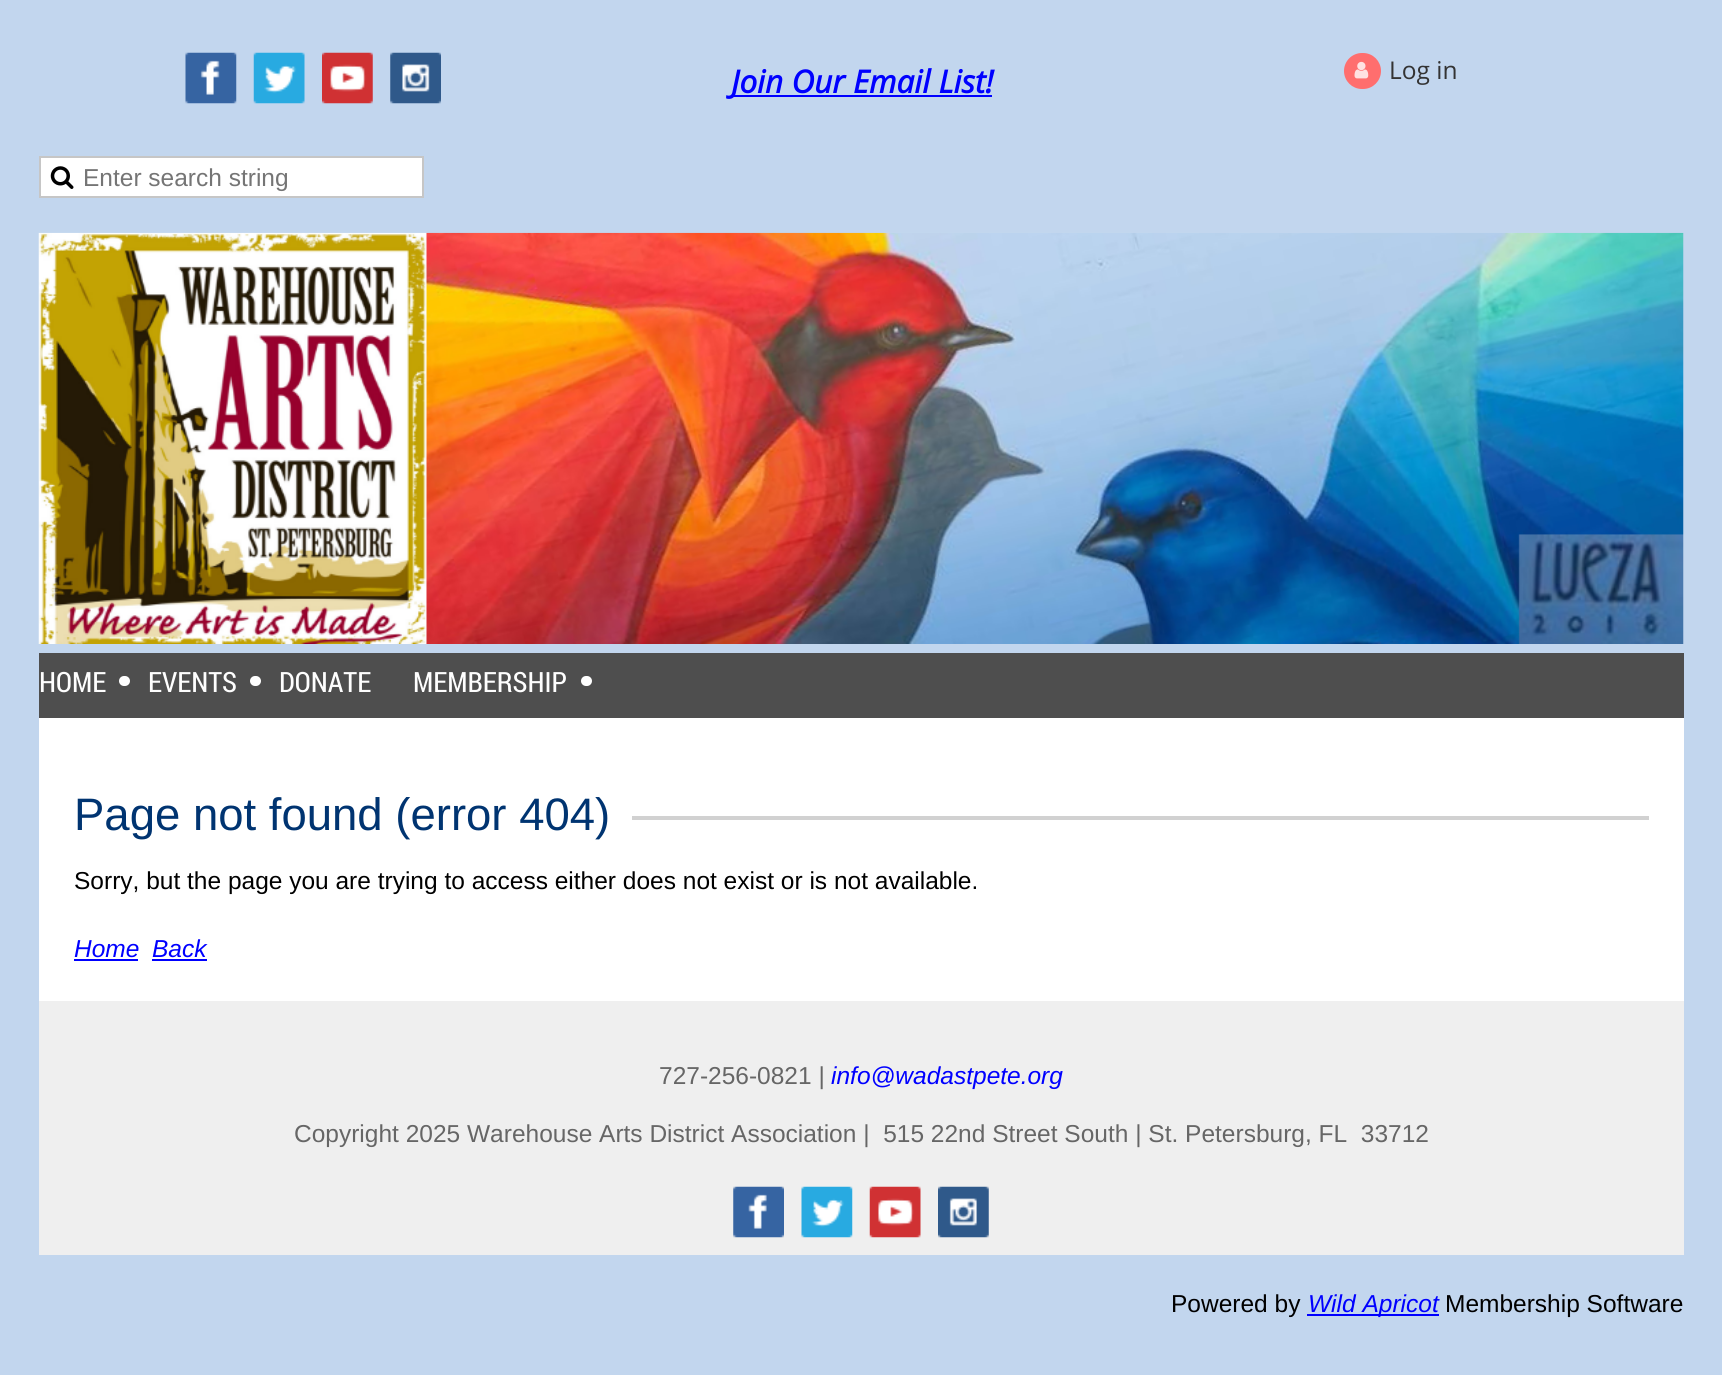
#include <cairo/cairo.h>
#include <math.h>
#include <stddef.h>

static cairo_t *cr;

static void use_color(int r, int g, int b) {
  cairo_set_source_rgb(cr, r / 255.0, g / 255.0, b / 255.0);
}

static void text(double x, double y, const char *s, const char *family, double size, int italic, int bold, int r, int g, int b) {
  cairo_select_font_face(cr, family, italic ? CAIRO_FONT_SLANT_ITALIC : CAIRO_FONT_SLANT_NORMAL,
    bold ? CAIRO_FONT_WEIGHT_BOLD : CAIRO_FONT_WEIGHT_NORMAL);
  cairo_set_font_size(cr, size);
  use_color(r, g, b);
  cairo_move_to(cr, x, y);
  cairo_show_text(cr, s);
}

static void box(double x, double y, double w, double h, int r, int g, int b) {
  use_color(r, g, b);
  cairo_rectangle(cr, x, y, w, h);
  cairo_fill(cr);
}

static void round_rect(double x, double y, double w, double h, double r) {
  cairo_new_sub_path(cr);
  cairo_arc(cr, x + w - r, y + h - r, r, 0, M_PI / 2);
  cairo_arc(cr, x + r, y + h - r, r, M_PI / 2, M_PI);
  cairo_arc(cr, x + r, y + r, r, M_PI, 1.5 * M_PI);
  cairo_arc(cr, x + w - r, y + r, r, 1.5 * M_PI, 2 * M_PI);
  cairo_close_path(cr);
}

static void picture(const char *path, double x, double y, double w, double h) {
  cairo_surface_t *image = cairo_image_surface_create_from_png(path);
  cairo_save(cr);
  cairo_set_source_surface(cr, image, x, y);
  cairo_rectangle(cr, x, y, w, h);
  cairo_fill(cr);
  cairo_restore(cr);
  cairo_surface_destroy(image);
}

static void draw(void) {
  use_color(194, 214, 238);
  cairo_paint(cr);
  picture("img_01.png", 185, 52, 52, 52);
  picture("img_02.png", 253, 52, 52, 52);
  picture("img_03.png", 322, 52, 51, 52);
  picture("img_04.png", 390, 52, 51, 52);
  box(732, 95, 260, 2, 0, 0, 255);
  use_color(255, 110, 110);
  round_rect(1346, 55, 33, 32, 16);
  cairo_fill_preserve(cr);
  cairo_set_line_width(cr, 4);
  cairo_stroke(cr);
  picture("img_05.png", 1354, 61, 15, 18);
  use_color(255, 255, 255);
  cairo_rectangle(cr, 40, 157, 383, 40);
  cairo_fill_preserve(cr);
  use_color(198, 198, 198);
  cairo_set_line_width(cr, 2);
  cairo_stroke(cr);
  picture("img_06.png", 50, 166, 24, 23);
  picture("img_07.png", 38, 232, 1646, 412);
  box(39, 653, 1645, 65, 78, 78, 78);
  use_color(255, 255, 255);
  round_rect(119, 676, 11, 10, 5);
  cairo_fill(cr);
  round_rect(250, 676, 11, 10, 5);
  cairo_fill(cr);
  round_rect(581, 676, 11, 10, 5);
  cairo_fill(cr);
  box(39, 718, 1645, 283, 255, 255, 255);
  box(632, 816, 1017, 4, 209, 209, 209);
  box(74, 959, 64, 2, 0, 0, 255);
  box(152, 959, 55, 2, 0, 0, 255);
  box(39, 1001, 1645, 254, 239, 239, 239);
  picture("img_08.png", 733, 1186, 51, 52);
  picture("img_09.png", 801, 1186, 52, 52);
  picture("img_10.png", 869, 1186, 52, 52);
  picture("img_11.png", 938, 1186, 51, 52);
  box(1307, 1314, 132, 2, 0, 0, 255);
  text(731, 93, "Join Our Email List!", "Open Sans", 31.5, 1, 1, 0, 0, 255);
  text(1389, 79, "Log in", "Open Sans", 24.5, 0, 0, 51, 51, 51);
  text(83, 186, "Enter search string", "Liberation Sans", 24.5, 0, 0, 117, 117, 117);
  text(39, 692, "HOME", "Roboto Condensed", 28, 0, 0, 254, 254, 254);
  text(148, 692, "EVENTS", "Roboto Condensed", 28, 0, 0, 254, 254, 254);
  text(279, 692, "DONATE", "Roboto Condensed", 28, 0, 0, 254, 254, 254);
  text(413, 692, "MEMBERSHIP", "Roboto Condensed", 28, 0, 0, 254, 254, 254);
  text(74, 830, "Page not found (error 404)", "Liberation Sans", 45.5, 0, 0, 0, 52, 113);
  text(74, 889, "Sorry, but the page you are trying to access either does not exist or is not available.", "Liberation Sans", 24.5, 0, 0, 0, 0, 0);
  text(74, 957, "Home", "Liberation Sans", 24.5, 1, 0, 0, 0, 255);
  text(152, 957, "Back", "Liberation Sans", 24.5, 1, 0, 0, 0, 255);
  text(659, 1084, "727-256-0821 |", "Liberation Sans", 24.5, 0, 0, 102, 102, 102);
  text(831, 1084, "info@wadastpete.org", "Liberation Sans", 24.5, 1, 0, 0, 0, 255);
  text(294, 1142, "Copyright 2025 Warehouse Arts District Association |  515 22nd Street South | St. Petersburg, FL  33712", "Liberation Sans", 24.5, 0, 0, 102, 102, 102);
  text(1171, 1312, "Powered by", "Liberation Sans", 24.5, 0, 0, 0, 0, 0);
  text(1308, 1312, "Wild Apricot", "Liberation Sans", 24.5, 1, 0, 0, 0, 255);
  text(1445, 1312, "Membership Software", "Liberation Sans", 24.5, 0, 0, 0, 0, 0);
}

int main(void) {
  cairo_surface_t *surface = cairo_image_surface_create(CAIRO_FORMAT_RGB24, 1722, 1375);
  cr = cairo_create(surface);
  cairo_font_options_t *options = cairo_font_options_create();
  cairo_font_options_set_hint_metrics(options, CAIRO_HINT_METRICS_OFF);
  cairo_font_options_set_hint_style(options, CAIRO_HINT_STYLE_NONE);
  cairo_set_font_options(cr, options);
  cairo_set_miter_limit(cr, 4);
  draw();
  cairo_surface_write_to_png(surface, "out.png");
  cairo_font_options_destroy(options);
  cairo_destroy(cr);
  cairo_surface_destroy(surface);
  return 0;
}
